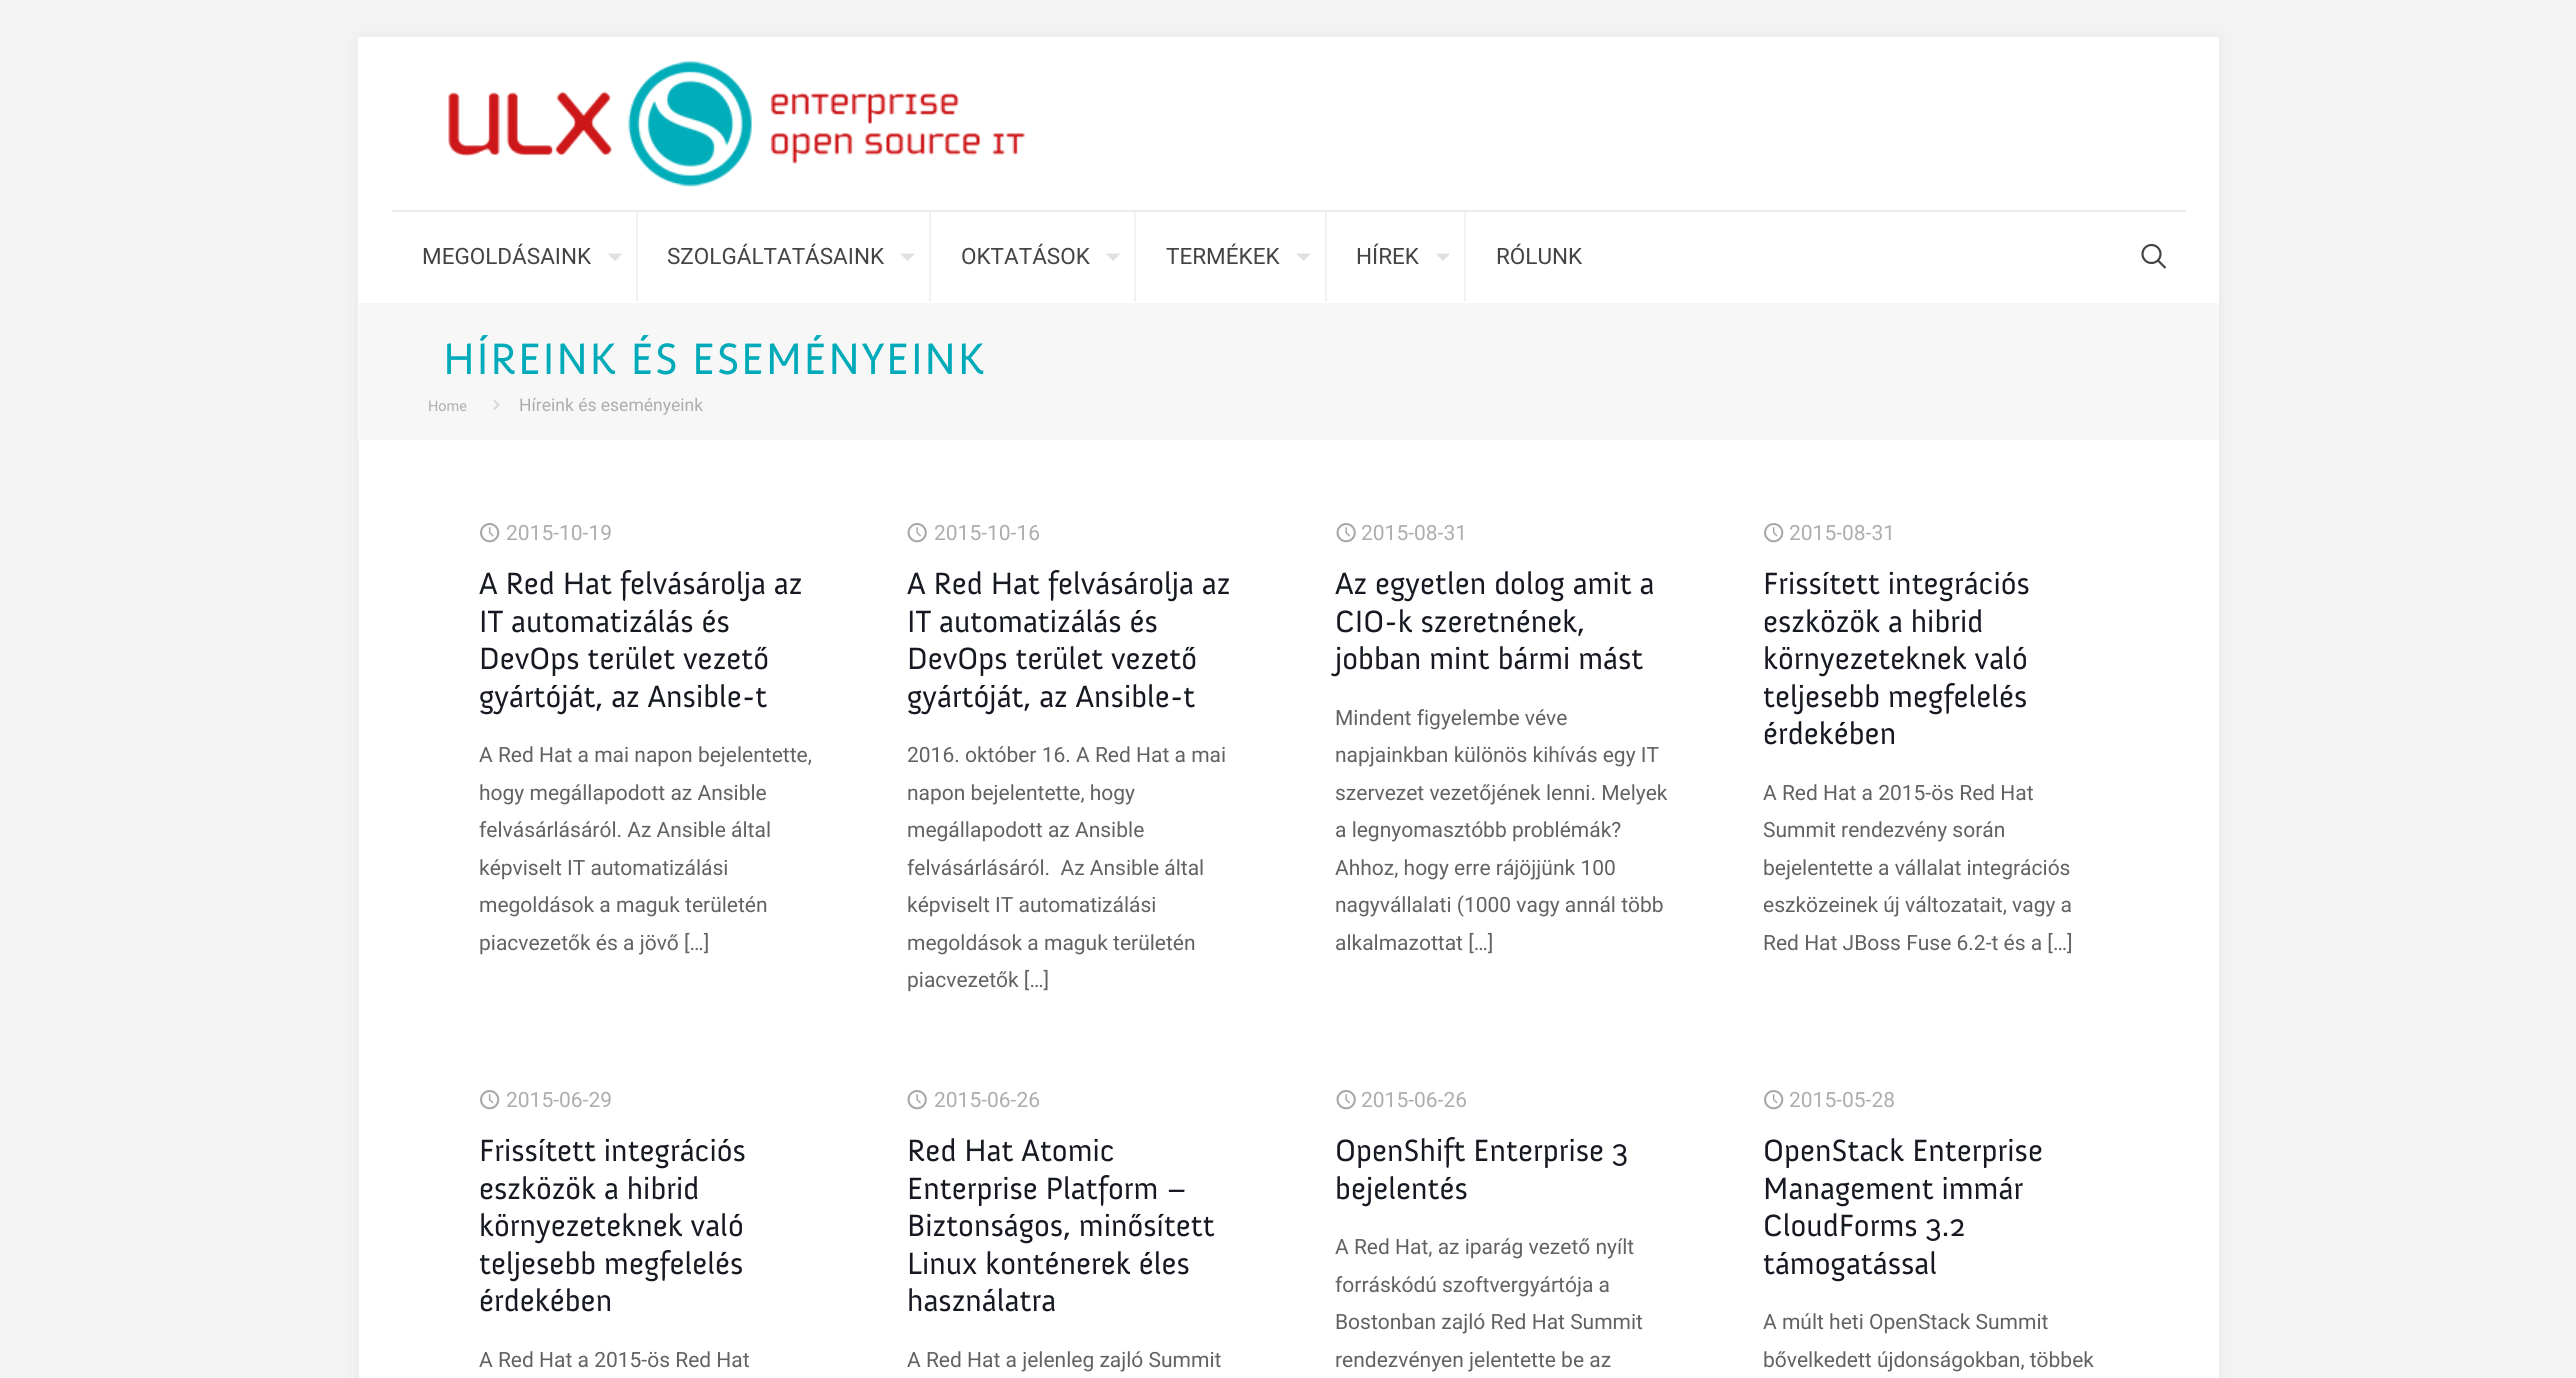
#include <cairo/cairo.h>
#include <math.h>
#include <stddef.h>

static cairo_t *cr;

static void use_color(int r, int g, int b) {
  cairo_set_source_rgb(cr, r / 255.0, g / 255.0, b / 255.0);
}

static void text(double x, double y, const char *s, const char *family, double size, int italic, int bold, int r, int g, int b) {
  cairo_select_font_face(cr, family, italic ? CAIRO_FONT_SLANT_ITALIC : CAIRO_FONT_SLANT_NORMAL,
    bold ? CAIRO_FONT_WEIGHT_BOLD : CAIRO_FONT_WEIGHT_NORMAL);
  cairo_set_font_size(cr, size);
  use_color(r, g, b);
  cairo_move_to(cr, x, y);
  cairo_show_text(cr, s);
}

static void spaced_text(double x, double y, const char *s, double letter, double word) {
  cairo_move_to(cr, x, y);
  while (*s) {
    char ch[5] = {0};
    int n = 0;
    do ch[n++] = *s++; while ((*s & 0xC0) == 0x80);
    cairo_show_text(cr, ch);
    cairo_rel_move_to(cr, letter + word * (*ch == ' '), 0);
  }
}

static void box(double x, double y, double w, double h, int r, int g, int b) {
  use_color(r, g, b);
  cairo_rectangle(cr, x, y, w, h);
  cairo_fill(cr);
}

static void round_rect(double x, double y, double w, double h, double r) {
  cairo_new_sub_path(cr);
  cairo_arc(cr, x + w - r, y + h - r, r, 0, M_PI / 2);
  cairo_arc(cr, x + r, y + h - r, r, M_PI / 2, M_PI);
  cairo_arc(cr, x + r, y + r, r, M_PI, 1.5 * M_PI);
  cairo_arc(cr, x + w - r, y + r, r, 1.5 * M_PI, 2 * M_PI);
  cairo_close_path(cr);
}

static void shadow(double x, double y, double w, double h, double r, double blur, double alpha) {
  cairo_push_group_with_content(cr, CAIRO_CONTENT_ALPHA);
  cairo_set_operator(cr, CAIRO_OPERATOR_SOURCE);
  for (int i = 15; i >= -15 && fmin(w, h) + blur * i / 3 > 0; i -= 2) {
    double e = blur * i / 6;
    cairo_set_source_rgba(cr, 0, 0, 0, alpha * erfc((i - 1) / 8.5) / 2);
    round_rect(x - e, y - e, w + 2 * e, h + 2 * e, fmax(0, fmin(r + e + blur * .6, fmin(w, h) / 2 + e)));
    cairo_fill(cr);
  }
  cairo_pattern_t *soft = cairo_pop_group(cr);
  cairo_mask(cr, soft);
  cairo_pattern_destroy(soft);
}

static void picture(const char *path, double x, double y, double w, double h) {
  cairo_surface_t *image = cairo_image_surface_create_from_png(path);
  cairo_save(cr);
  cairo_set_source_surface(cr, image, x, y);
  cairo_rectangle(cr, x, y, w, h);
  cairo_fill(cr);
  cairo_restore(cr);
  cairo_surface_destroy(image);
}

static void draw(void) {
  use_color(244, 244, 244);
  cairo_paint(cr);
  use_color(0, 0, 0);
  shadow(359, 38, 1860, 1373, 0, 11, 0.06);
  box(359, 440, 1860, 938, 255, 255, 255);
  box(358, 37, 1861, 403, 255, 255, 255);
  box(392, 210, 1794, 2, 235, 235, 235);
  picture("img_01.png", 448, 61, 577, 126);
  box(636, 212, 2, 90, 242, 242, 242);
  use_color(224, 224, 224);
  cairo_new_path(cr);
  cairo_move_to(cr, 607.5, 253.5);
  cairo_line_to(cr, 622.5, 253.5);
  cairo_line_to(cr, 615, 261);
  cairo_close_path(cr);
  cairo_fill(cr);
  box(929, 212, 2, 90, 242, 242, 242);
  use_color(224, 224, 224);
  cairo_new_path(cr);
  cairo_move_to(cr, 900, 253.5);
  cairo_line_to(cr, 915, 253.5);
  cairo_line_to(cr, 907.5, 261);
  cairo_close_path(cr);
  cairo_fill(cr);
  box(1134, 212, 2, 90, 242, 242, 242);
  use_color(224, 224, 224);
  cairo_new_path(cr);
  cairo_move_to(cr, 1105.5, 253.5);
  cairo_line_to(cr, 1120.5, 253.5);
  cairo_line_to(cr, 1113, 261);
  cairo_close_path(cr);
  cairo_fill(cr);
  box(1325, 212, 2, 90, 242, 242, 242);
  use_color(224, 224, 224);
  cairo_new_path(cr);
  cairo_move_to(cr, 1296, 253.5);
  cairo_line_to(cr, 1311, 253.5);
  cairo_line_to(cr, 1303.5, 261);
  cairo_close_path(cr);
  cairo_fill(cr);
  box(1464, 212, 2, 90, 242, 242, 242);
  use_color(224, 224, 224);
  cairo_new_path(cr);
  cairo_move_to(cr, 1435.5, 253.5);
  cairo_line_to(cr, 1450.5, 253.5);
  cairo_line_to(cr, 1443, 261);
  cairo_close_path(cr);
  cairo_fill(cr);
  cairo_arc(cr, 2151.5, 254, 9, 0, 2 * M_PI);
  use_color(68, 68, 68);
  cairo_set_line_width(cr, 2.2);
  cairo_stroke(cr);
  cairo_new_path(cr);
  cairo_move_to(cr, 2158, 260.5);
  cairo_line_to(cr, 2165.5, 268);
  cairo_stroke(cr);
  box(359, 303, 1860, 137, 247, 247, 247);
  picture("img_02.png", 493, 399, 7, 11);
  picture("img_03.png", 480, 523, 20, 20);
  picture("img_04.png", 907, 523, 20, 20);
  picture("img_04.png", 1336, 523, 20, 20);
  picture("img_03.png", 1764, 523, 20, 20);
  picture("img_03.png", 480, 1090, 20, 20);
  picture("img_04.png", 907, 1090, 20, 20);
  picture("img_04.png", 1336, 1090, 20, 20);
  picture("img_03.png", 1764, 1090, 20, 20);
  text(422, 264, "MEGOLDÁSAINK", "Roboto", 22.5, 0, 0, 68, 68, 68);
  text(667, 264, "SZOLGÁLTATÁSAINK", "Roboto", 22.5, 0, 0, 68, 68, 68);
  text(961, 264, "OKTATÁSOK", "Roboto", 22.5, 0, 0, 68, 68, 68);
  text(1166, 264, "TERMÉKEK", "Roboto", 22.5, 0, 0, 68, 68, 68);
  text(1356, 264, "HÍREK", "Roboto", 22.5, 0, 0, 68, 68, 68);
  text(1496, 264, "RÓLUNK", "Roboto", 22.5, 0, 0, 68, 68, 68);
  cairo_select_font_face(cr, "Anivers", CAIRO_FONT_SLANT_NORMAL, CAIRO_FONT_WEIGHT_NORMAL);
  cairo_set_font_size(cr, 45);
  use_color(0, 170, 184);
  spaced_text(443, 374, "HÍREINK ÉS ESEMÉNYEINK", 1.5, 0);
  text(428, 411, "Home", "Roboto", 14.5, 0, 0, 173, 173, 173);
  text(519, 411, "Híreink és eseményeink", "Roboto", 17.5, 0, 0, 173, 173, 173);
  text(506, 540, "2015-10-19", "Roboto", 21, 0, 0, 173, 173, 173);
  text(479, 594, "A Red Hat felvásárolja az", "Anivers", 31.5, 0, 0, 22, 25, 34);
  text(479, 632, "IT automatizálás és", "Anivers", 31.5, 0, 0, 22, 25, 34);
  text(479, 669, "DevOps terület vezető", "Anivers", 31.5, 0, 0, 22, 25, 34);
  text(479, 707, "gyártóját, az Ansible-t", "Anivers", 31.5, 0, 0, 22, 25, 34);
  text(479, 762, "A Red Hat a mai napon bejelentette,", "Roboto", 21, 0, 0, 98, 98, 98);
  text(479, 800, "hogy megállapodott az Ansible", "Roboto", 21, 0, 0, 98, 98, 98);
  text(479, 837, "felvásárlásáról. Az Ansible által", "Roboto", 21, 0, 0, 98, 98, 98);
  text(479, 875, "képviselt IT automatizálási", "Roboto", 21, 0, 0, 98, 98, 98);
  text(479, 912, "megoldások a maguk területén", "Roboto", 21, 0, 0, 98, 98, 98);
  text(479, 950, "piacvezetők és a jövő […]", "Roboto", 21, 0, 0, 98, 98, 98);
  text(934, 540, "2015-10-16", "Roboto", 21, 0, 0, 173, 173, 173);
  text(907, 594, "A Red Hat felvásárolja az", "Anivers", 31.5, 0, 0, 22, 25, 34);
  text(907, 632, "IT automatizálás és", "Anivers", 31.5, 0, 0, 22, 25, 34);
  text(907, 669, "DevOps terület vezető", "Anivers", 31.5, 0, 0, 22, 25, 34);
  text(907, 707, "gyártóját, az Ansible-t", "Anivers", 31.5, 0, 0, 22, 25, 34);
  text(907, 762, "2016. október 16. A Red Hat a mai", "Roboto", 21, 0, 0, 98, 98, 98);
  text(907, 800, "napon bejelentette, hogy", "Roboto", 21, 0, 0, 98, 98, 98);
  text(907, 837, "megállapodott az Ansible", "Roboto", 21, 0, 0, 98, 98, 98);
  text(907, 875, "felvásárlásáról.  Az Ansible által", "Roboto", 21, 0, 0, 98, 98, 98);
  text(907, 912, "képviselt IT automatizálási", "Roboto", 21, 0, 0, 98, 98, 98);
  text(907, 950, "megoldások a maguk területén", "Roboto", 21, 0, 0, 98, 98, 98);
  text(907, 987, "piacvezetők […]", "Roboto", 21, 0, 0, 98, 98, 98);
  text(1361, 540, "2015-08-31", "Roboto", 21, 0, 0, 173, 173, 173);
  text(1335, 594, "Az egyetlen dolog amit a", "Anivers", 31.5, 0, 0, 22, 25, 34);
  text(1335, 632, "CIO-k szeretnének,", "Anivers", 31.5, 0, 0, 22, 25, 34);
  text(1335, 669, "jobban mint bármi mást", "Anivers", 31.5, 0, 0, 22, 25, 34);
  text(1335, 725, "Mindent figyelembe véve", "Roboto", 21, 0, 0, 98, 98, 98);
  text(1335, 762, "napjainkban különös kihívás egy IT", "Roboto", 21, 0, 0, 98, 98, 98);
  text(1335, 800, "szervezet vezetőjének lenni. Melyek", "Roboto", 21, 0, 0, 98, 98, 98);
  text(1335, 837, "a legnyomasztóbb problémák?", "Roboto", 21, 0, 0, 98, 98, 98);
  text(1335, 875, "Ahhoz, hogy erre rájöjjünk 100", "Roboto", 21, 0, 0, 98, 98, 98);
  text(1335, 912, "nagyvállalati (1000 vagy annál több", "Roboto", 21, 0, 0, 98, 98, 98);
  text(1335, 950, "alkalmazottat […]", "Roboto", 21, 0, 0, 98, 98, 98);
  text(1789, 540, "2015-08-31", "Roboto", 21, 0, 0, 173, 173, 173);
  text(1763, 594, "Frissített integrációs", "Anivers", 31.5, 0, 0, 22, 25, 34);
  text(1763, 632, "eszközök a hibrid", "Anivers", 31.5, 0, 0, 22, 25, 34);
  text(1763, 669, "környezeteknek való", "Anivers", 31.5, 0, 0, 22, 25, 34);
  text(1763, 707, "teljesebb megfelelés", "Anivers", 31.5, 0, 0, 22, 25, 34);
  text(1763, 744, "érdekében", "Anivers", 31.5, 0, 0, 22, 25, 34);
  text(1763, 800, "A Red Hat a 2015-ös Red Hat", "Roboto", 21, 0, 0, 98, 98, 98);
  text(1763, 837, "Summit rendezvény során", "Roboto", 21, 0, 0, 98, 98, 98);
  text(1763, 875, "bejelentette a vállalat integrációs", "Roboto", 21, 0, 0, 98, 98, 98);
  text(1763, 912, "eszközeinek új változatait, vagy a", "Roboto", 21, 0, 0, 98, 98, 98);
  text(1763, 950, "Red Hat JBoss Fuse 6.2-t és a […]", "Roboto", 21, 0, 0, 98, 98, 98);
  text(506, 1107, "2015-06-29", "Roboto", 21, 0, 0, 173, 173, 173);
  text(479, 1161, "Frissített integrációs", "Anivers", 31.5, 0, 0, 22, 25, 34);
  text(479, 1199, "eszközök a hibrid", "Anivers", 31.5, 0, 0, 22, 25, 34);
  text(479, 1236, "környezeteknek való", "Anivers", 31.5, 0, 0, 22, 25, 34);
  text(479, 1274, "teljesebb megfelelés", "Anivers", 31.5, 0, 0, 22, 25, 34);
  text(479, 1311, "érdekében", "Anivers", 31.5, 0, 0, 22, 25, 34);
  text(479, 1367, "A Red Hat a 2015-ös Red Hat", "Roboto", 21, 0, 0, 98, 98, 98);
  text(934, 1107, "2015-06-26", "Roboto", 21, 0, 0, 173, 173, 173);
  text(907, 1161, "Red Hat Atomic", "Anivers", 31.5, 0, 0, 22, 25, 34);
  text(907, 1199, "Enterprise Platform –", "Anivers", 31.5, 0, 0, 22, 25, 34);
  text(907, 1236, "Biztonságos, minősített", "Anivers", 31.5, 0, 0, 22, 25, 34);
  text(907, 1274, "Linux konténerek éles", "Anivers", 31.5, 0, 0, 22, 25, 34);
  text(907, 1311, "használatra", "Anivers", 31.5, 0, 0, 22, 25, 34);
  text(907, 1367, "A Red Hat a jelenleg zajló Summit", "Roboto", 21, 0, 0, 98, 98, 98);
  text(1361, 1107, "2015-06-26", "Roboto", 21, 0, 0, 173, 173, 173);
  text(1335, 1161, "OpenShift Enterprise 3", "Anivers", 31.5, 0, 0, 22, 25, 34);
  text(1335, 1199, "bejelentés", "Anivers", 31.5, 0, 0, 22, 25, 34);
  text(1335, 1254, "A Red Hat, az iparág vezető nyílt", "Roboto", 21, 0, 0, 98, 98, 98);
  text(1335, 1292, "forráskódú szoftvergyártója a", "Roboto", 21, 0, 0, 98, 98, 98);
  text(1335, 1329, "Bostonban zajló Red Hat Summit", "Roboto", 21, 0, 0, 98, 98, 98);
  text(1335, 1367, "rendezvényen jelentette be az", "Roboto", 21, 0, 0, 98, 98, 98);
  text(1789, 1107, "2015-05-28", "Roboto", 21, 0, 0, 173, 173, 173);
  text(1763, 1161, "OpenStack Enterprise", "Anivers", 31.5, 0, 0, 22, 25, 34);
  text(1763, 1199, "Management immár", "Anivers", 31.5, 0, 0, 22, 25, 34);
  text(1763, 1236, "CloudForms 3.2", "Anivers", 31.5, 0, 0, 22, 25, 34);
  text(1763, 1274, "támogatással", "Anivers", 31.5, 0, 0, 22, 25, 34);
  text(1763, 1329, "A múlt heti OpenStack Summit", "Roboto", 21, 0, 0, 98, 98, 98);
  text(1763, 1367, "bővelkedett újdonságokban, többek", "Roboto", 21, 0, 0, 98, 98, 98);
}

int main(void) {
  cairo_surface_t *surface = cairo_image_surface_create(CAIRO_FORMAT_RGB24, 2576, 1378);
  cr = cairo_create(surface);
  cairo_font_options_t *options = cairo_font_options_create();
  cairo_font_options_set_hint_metrics(options, CAIRO_HINT_METRICS_OFF);
  cairo_font_options_set_hint_style(options, CAIRO_HINT_STYLE_NONE);
  cairo_set_font_options(cr, options);
  cairo_set_miter_limit(cr, 4);
  draw();
  cairo_surface_write_to_png(surface, "out.png");
  cairo_font_options_destroy(options);
  cairo_destroy(cr);
  cairo_surface_destroy(surface);
  return 0;
}
